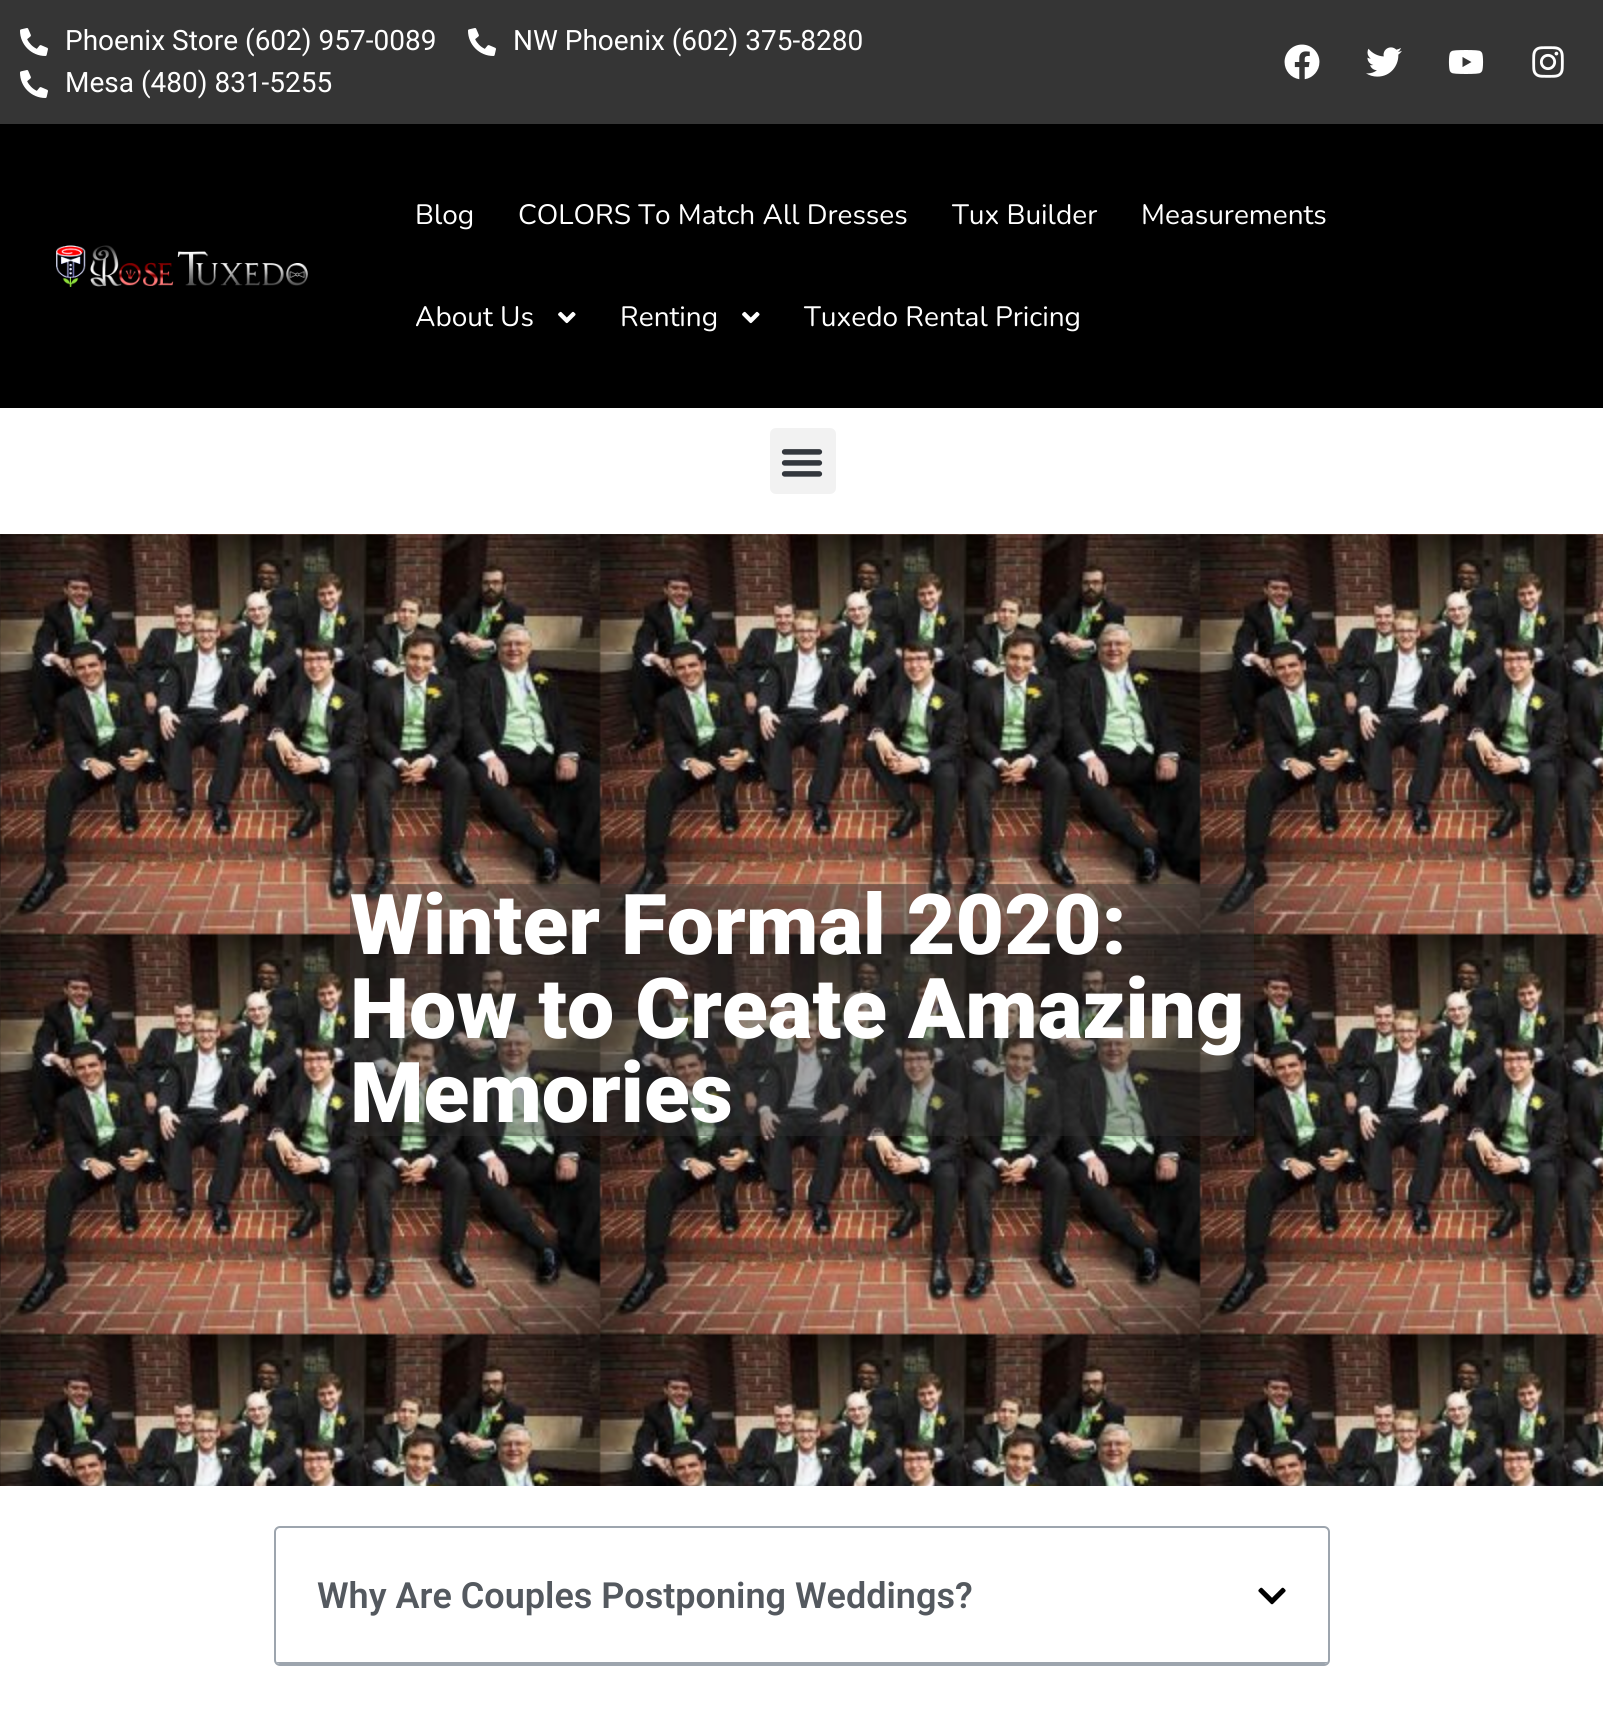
#include <cairo/cairo.h>
#include <math.h>
#include <stddef.h>

static cairo_t *cr;

static void use_color(int r, int g, int b) {
  cairo_set_source_rgb(cr, r / 255.0, g / 255.0, b / 255.0);
}

static void text(double x, double y, const char *s, const char *family, double size, int italic, int bold, int r, int g, int b) {
  cairo_select_font_face(cr, family, italic ? CAIRO_FONT_SLANT_ITALIC : CAIRO_FONT_SLANT_NORMAL,
    bold ? CAIRO_FONT_WEIGHT_BOLD : CAIRO_FONT_WEIGHT_NORMAL);
  cairo_set_font_size(cr, size);
  use_color(r, g, b);
  cairo_move_to(cr, x, y);
  cairo_show_text(cr, s);
}

static void box(double x, double y, double w, double h, int r, int g, int b) {
  use_color(r, g, b);
  cairo_rectangle(cr, x, y, w, h);
  cairo_fill(cr);
}

static void round_rect(double x, double y, double w, double h, double r) {
  cairo_new_sub_path(cr);
  cairo_arc(cr, x + w - r, y + h - r, r, 0, M_PI / 2);
  cairo_arc(cr, x + r, y + h - r, r, M_PI / 2, M_PI);
  cairo_arc(cr, x + r, y + r, r, M_PI, 1.5 * M_PI);
  cairo_arc(cr, x + w - r, y + r, r, 1.5 * M_PI, 2 * M_PI);
  cairo_close_path(cr);
}

static void picture(const char *path, double x, double y, double w, double h) {
  cairo_surface_t *image = cairo_image_surface_create_from_png(path);
  cairo_save(cr);
  cairo_set_source_surface(cr, image, x, y);
  cairo_rectangle(cr, x, y, w, h);
  cairo_fill(cr);
  cairo_restore(cr);
  cairo_surface_destroy(image);
}

static void draw(void) {
  use_color(255, 255, 255);
  cairo_paint(cr);
  box(0, 0, 1603, 124, 53, 53, 53);
  picture("img_01.png", 20, 28, 28, 28);
  picture("img_01.png", 468, 28, 28, 28);
  picture("img_01.png", 20, 70, 28, 28);
  picture("img_02.png", 1284, 44, 36, 36);
  picture("img_03.png", 1366, 47, 36, 30);
  picture("img_04.png", 1448, 50, 36, 24);
  picture("img_05.png", 1532, 46, 32, 32);
  box(0, 124, 1603, 284, 0, 0, 0);
  picture("img_06.png", 56, 245, 252, 42);
  picture("img_07.png", 558, 311, 18, 13);
  picture("img_07.png", 742, 311, 18, 13);
  use_color(242, 242, 242);
  round_rect(770, 428, 66, 66, 6);
  cairo_fill(cr);
  picture("img_08.png", 781, 449, 42, 28);
  picture("img_09.png", 0, 534, 1603, 952);
  cairo_set_source_rgba(cr, 0.2, 0.2, 0.2, 0.41);
  cairo_rectangle(cr, 350, 884, 904, 252);
  cairo_fill(cr);
  round_rect(275, 1527, 1054, 138, 5);
  use_color(157, 165, 174);
  cairo_stroke(cr);
  cairo_save(cr);
  round_rect(276, 1528, 1052, 136, 4);
  cairo_clip(cr);
  box(276, 1662, 1052, 2, 157, 165, 174);
  cairo_restore(cr);
  picture("img_10.png", 1258, 1587, 28, 18);
  text(65, 50, "Phoenix Store (602) 957-0089", "Roboto", 28, 0, 0, 255, 255, 255);
  text(513, 50, "NW Phoenix (602) 375-8280", "Roboto", 28, 0, 0, 255, 255, 255);
  text(65, 92, "Mesa (480) 831-5255", "Roboto", 28, 0, 0, 255, 255, 255);
  text(415, 224, "Blog", "Nunito", 28, 0, 0, 255, 255, 255);
  text(518, 224, "COLORS To Match All Dresses", "Nunito", 28, 0, 0, 255, 255, 255);
  text(952, 224, "Tux Builder", "Nunito", 28, 0, 0, 255, 255, 255);
  text(1141, 224, "Measurements", "Nunito", 28, 0, 0, 255, 255, 255);
  text(415, 326, "About Us", "Nunito", 28, 0, 0, 255, 255, 255);
  text(620, 326, "Renting", "Nunito", 28, 0, 0, 255, 255, 255);
  text(804, 326, "Tuxedo Rental Pricing", "Nunito", 28, 0, 0, 255, 255, 255);
  text(350, 954, "Winter Formal 2020:", "Roboto Black", 84, 0, 0, 255, 255, 255);
  text(350, 1038, "How to Create Amazing", "Roboto Black", 84, 0, 0, 255, 255, 255);
  text(350, 1122, "Memories", "Roboto Black", 84, 0, 0, 255, 255, 255);
  text(317, 1608, "Why Are Couples Postponing Weddings?", "Roboto SemiBold", 36, 0, 0, 84, 89, 95);
}

int main(void) {
  cairo_surface_t *surface = cairo_image_surface_create(CAIRO_FORMAT_RGB24, 1603, 1713);
  cr = cairo_create(surface);
  cairo_font_options_t *options = cairo_font_options_create();
  cairo_font_options_set_hint_metrics(options, CAIRO_HINT_METRICS_OFF);
  cairo_font_options_set_hint_style(options, CAIRO_HINT_STYLE_NONE);
  cairo_set_font_options(cr, options);
  cairo_set_miter_limit(cr, 4);
  draw();
  cairo_surface_write_to_png(surface, "out.png");
  cairo_font_options_destroy(options);
  cairo_destroy(cr);
  cairo_surface_destroy(surface);
  return 0;
}
